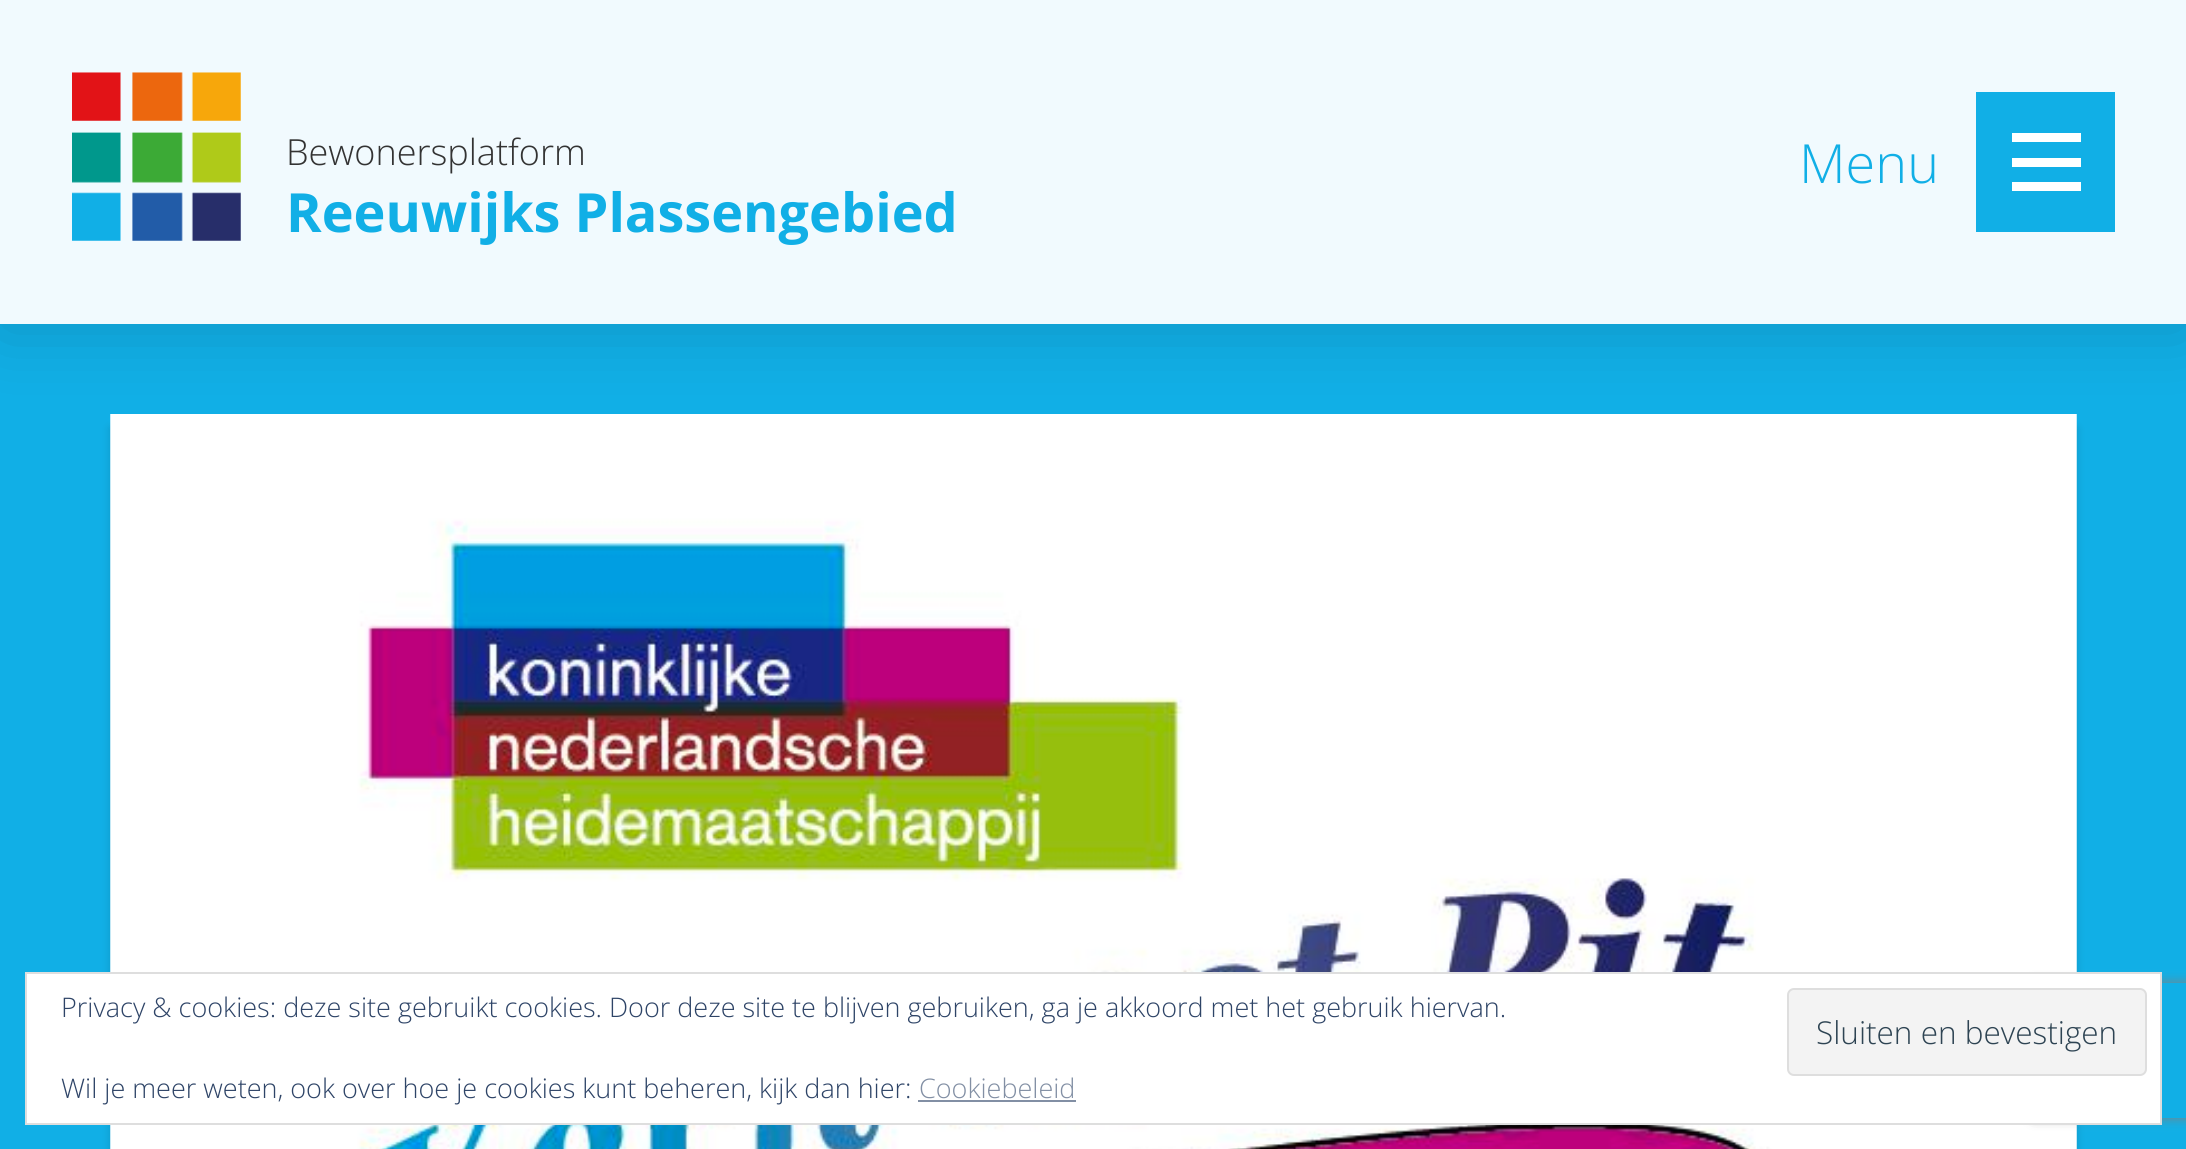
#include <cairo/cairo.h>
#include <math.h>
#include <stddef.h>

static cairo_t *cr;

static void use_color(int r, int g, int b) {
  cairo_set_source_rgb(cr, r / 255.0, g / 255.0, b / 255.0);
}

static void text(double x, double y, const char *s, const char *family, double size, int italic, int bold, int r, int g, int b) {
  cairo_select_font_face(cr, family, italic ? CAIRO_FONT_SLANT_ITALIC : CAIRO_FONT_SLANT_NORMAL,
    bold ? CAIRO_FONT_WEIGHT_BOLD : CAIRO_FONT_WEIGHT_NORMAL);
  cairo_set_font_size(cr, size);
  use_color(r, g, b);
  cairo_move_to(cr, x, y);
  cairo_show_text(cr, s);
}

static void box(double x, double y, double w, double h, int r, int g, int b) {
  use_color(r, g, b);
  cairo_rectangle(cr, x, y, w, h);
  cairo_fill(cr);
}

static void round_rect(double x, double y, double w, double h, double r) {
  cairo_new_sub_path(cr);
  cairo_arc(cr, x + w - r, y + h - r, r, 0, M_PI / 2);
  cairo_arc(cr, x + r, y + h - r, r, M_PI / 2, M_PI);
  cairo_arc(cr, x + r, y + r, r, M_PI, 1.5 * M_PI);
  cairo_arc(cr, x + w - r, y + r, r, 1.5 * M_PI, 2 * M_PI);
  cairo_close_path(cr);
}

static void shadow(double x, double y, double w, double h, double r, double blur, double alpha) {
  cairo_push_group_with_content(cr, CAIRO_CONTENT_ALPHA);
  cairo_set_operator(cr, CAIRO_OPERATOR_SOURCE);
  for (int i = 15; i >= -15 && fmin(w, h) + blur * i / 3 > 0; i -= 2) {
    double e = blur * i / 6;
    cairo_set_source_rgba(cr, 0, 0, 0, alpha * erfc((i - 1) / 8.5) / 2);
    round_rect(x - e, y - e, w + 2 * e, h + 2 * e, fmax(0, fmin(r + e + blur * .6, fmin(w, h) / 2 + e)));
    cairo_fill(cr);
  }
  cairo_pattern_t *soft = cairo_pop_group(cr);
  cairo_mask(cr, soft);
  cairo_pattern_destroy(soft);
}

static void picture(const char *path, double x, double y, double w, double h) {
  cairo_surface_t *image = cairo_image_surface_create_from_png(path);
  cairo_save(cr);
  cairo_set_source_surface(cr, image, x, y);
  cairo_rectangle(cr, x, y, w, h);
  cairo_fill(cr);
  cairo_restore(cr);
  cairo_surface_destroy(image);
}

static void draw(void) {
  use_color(17, 175, 230);
  cairo_paint(cr);
  use_color(0, 0, 0);
  shadow(110, 428, 1949, 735, 0, 4.5, 0.13);
  shadow(128, 428, 1949, 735, 0, 4.5, 0.13);
  picture("img_02.png", 110, 414, 1967, 735);
  shadow(0, 5, 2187, 324, 0, 36, 0.15);
  box(0, 0, 2186, 324, 241, 250, 254);
  picture("img_01.png", 72, 72, 169, 169);
  box(1976, 92, 139, 140, 17, 175, 230);
  box(2012, 133, 69, 9, 255, 255, 255);
  box(2012, 158, 69, 9, 255, 255, 255);
  box(2012, 182, 69, 9, 255, 255, 255);
  cairo_save(cr);
  cairo_set_fill_rule(cr, CAIRO_FILL_RULE_EVEN_ODD);
  cairo_new_path(cr);
  cairo_move_to(cr, 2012, 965);
  cairo_line_to(cr, 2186, 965);
  cairo_line_to(cr, 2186, 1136);
  cairo_line_to(cr, 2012, 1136);
  cairo_close_path(cr);
  cairo_move_to(cr, 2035, 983);
  cairo_line_to(cr, 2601, 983);
  cairo_curve_to(cr, 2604, 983, 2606, 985, 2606, 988);
  cairo_line_to(cr, 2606, 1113);
  cairo_curve_to(cr, 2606, 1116, 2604, 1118, 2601, 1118);
  cairo_line_to(cr, 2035, 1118);
  cairo_curve_to(cr, 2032, 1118, 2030, 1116, 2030, 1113);
  cairo_line_to(cr, 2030, 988);
  cairo_curve_to(cr, 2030, 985, 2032, 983, 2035, 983);
  cairo_close_path(cr);
  cairo_clip(cr);
  use_color(128, 128, 128);
  shadow(2030, 983, 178, 135, 5, 5.5, 1);
  cairo_restore(cr);
  cairo_rectangle(cr, 26, 973, 2135, 151);
  cairo_fill_preserve(cr);
  use_color(222, 222, 222);
  cairo_stroke(cr);
  use_color(243, 243, 243);
  round_rect(1788, 989, 358, 86, 6);
  cairo_fill_preserve(cr);
  use_color(222, 222, 222);
  cairo_stroke(cr);
  box(918, 1100, 158, 2, 130, 143, 164);
  text(286, 165, "Bewonersplatform", "Open Sans Light", 36, 0, 0, 51, 51, 51);
  text(286, 232, "Reeuwijks Plassengebied", "Open Sans", 54, 0, 1, 17, 175, 230);
  text(1799, 183, "Menu", "Open Sans Light", 54, 0, 0, 17, 175, 230);
  text(61, 1017, "Privacy & cookies: deze site gebruikt cookies. Door deze site te blijven gebruiken, ga je akkoord met het gebruik hiervan.", "Open Sans Light", 27, 0, 0, 46, 68, 103);
  text(1816, 1044, "Sluiten en bevestigen", "Open Sans Light", 31.5, 0, 0, 46, 68, 83);
  text(61, 1098, "Wil je meer weten, ook over hoe je cookies kunt beheren, kijk dan hier:", "Open Sans Light", 27, 0, 0, 46, 68, 103);
  text(919, 1098, "Cookiebeleid", "Open Sans Light", 27, 0, 0, 130, 143, 164);
}

int main(void) {
  cairo_surface_t *surface = cairo_image_surface_create(CAIRO_FORMAT_RGB24, 2186, 1149);
  cr = cairo_create(surface);
  cairo_font_options_t *options = cairo_font_options_create();
  cairo_font_options_set_hint_metrics(options, CAIRO_HINT_METRICS_OFF);
  cairo_font_options_set_hint_style(options, CAIRO_HINT_STYLE_NONE);
  cairo_set_font_options(cr, options);
  cairo_set_miter_limit(cr, 4);
  draw();
  cairo_surface_write_to_png(surface, "out.png");
  cairo_font_options_destroy(options);
  cairo_destroy(cr);
  cairo_surface_destroy(surface);
  return 0;
}
